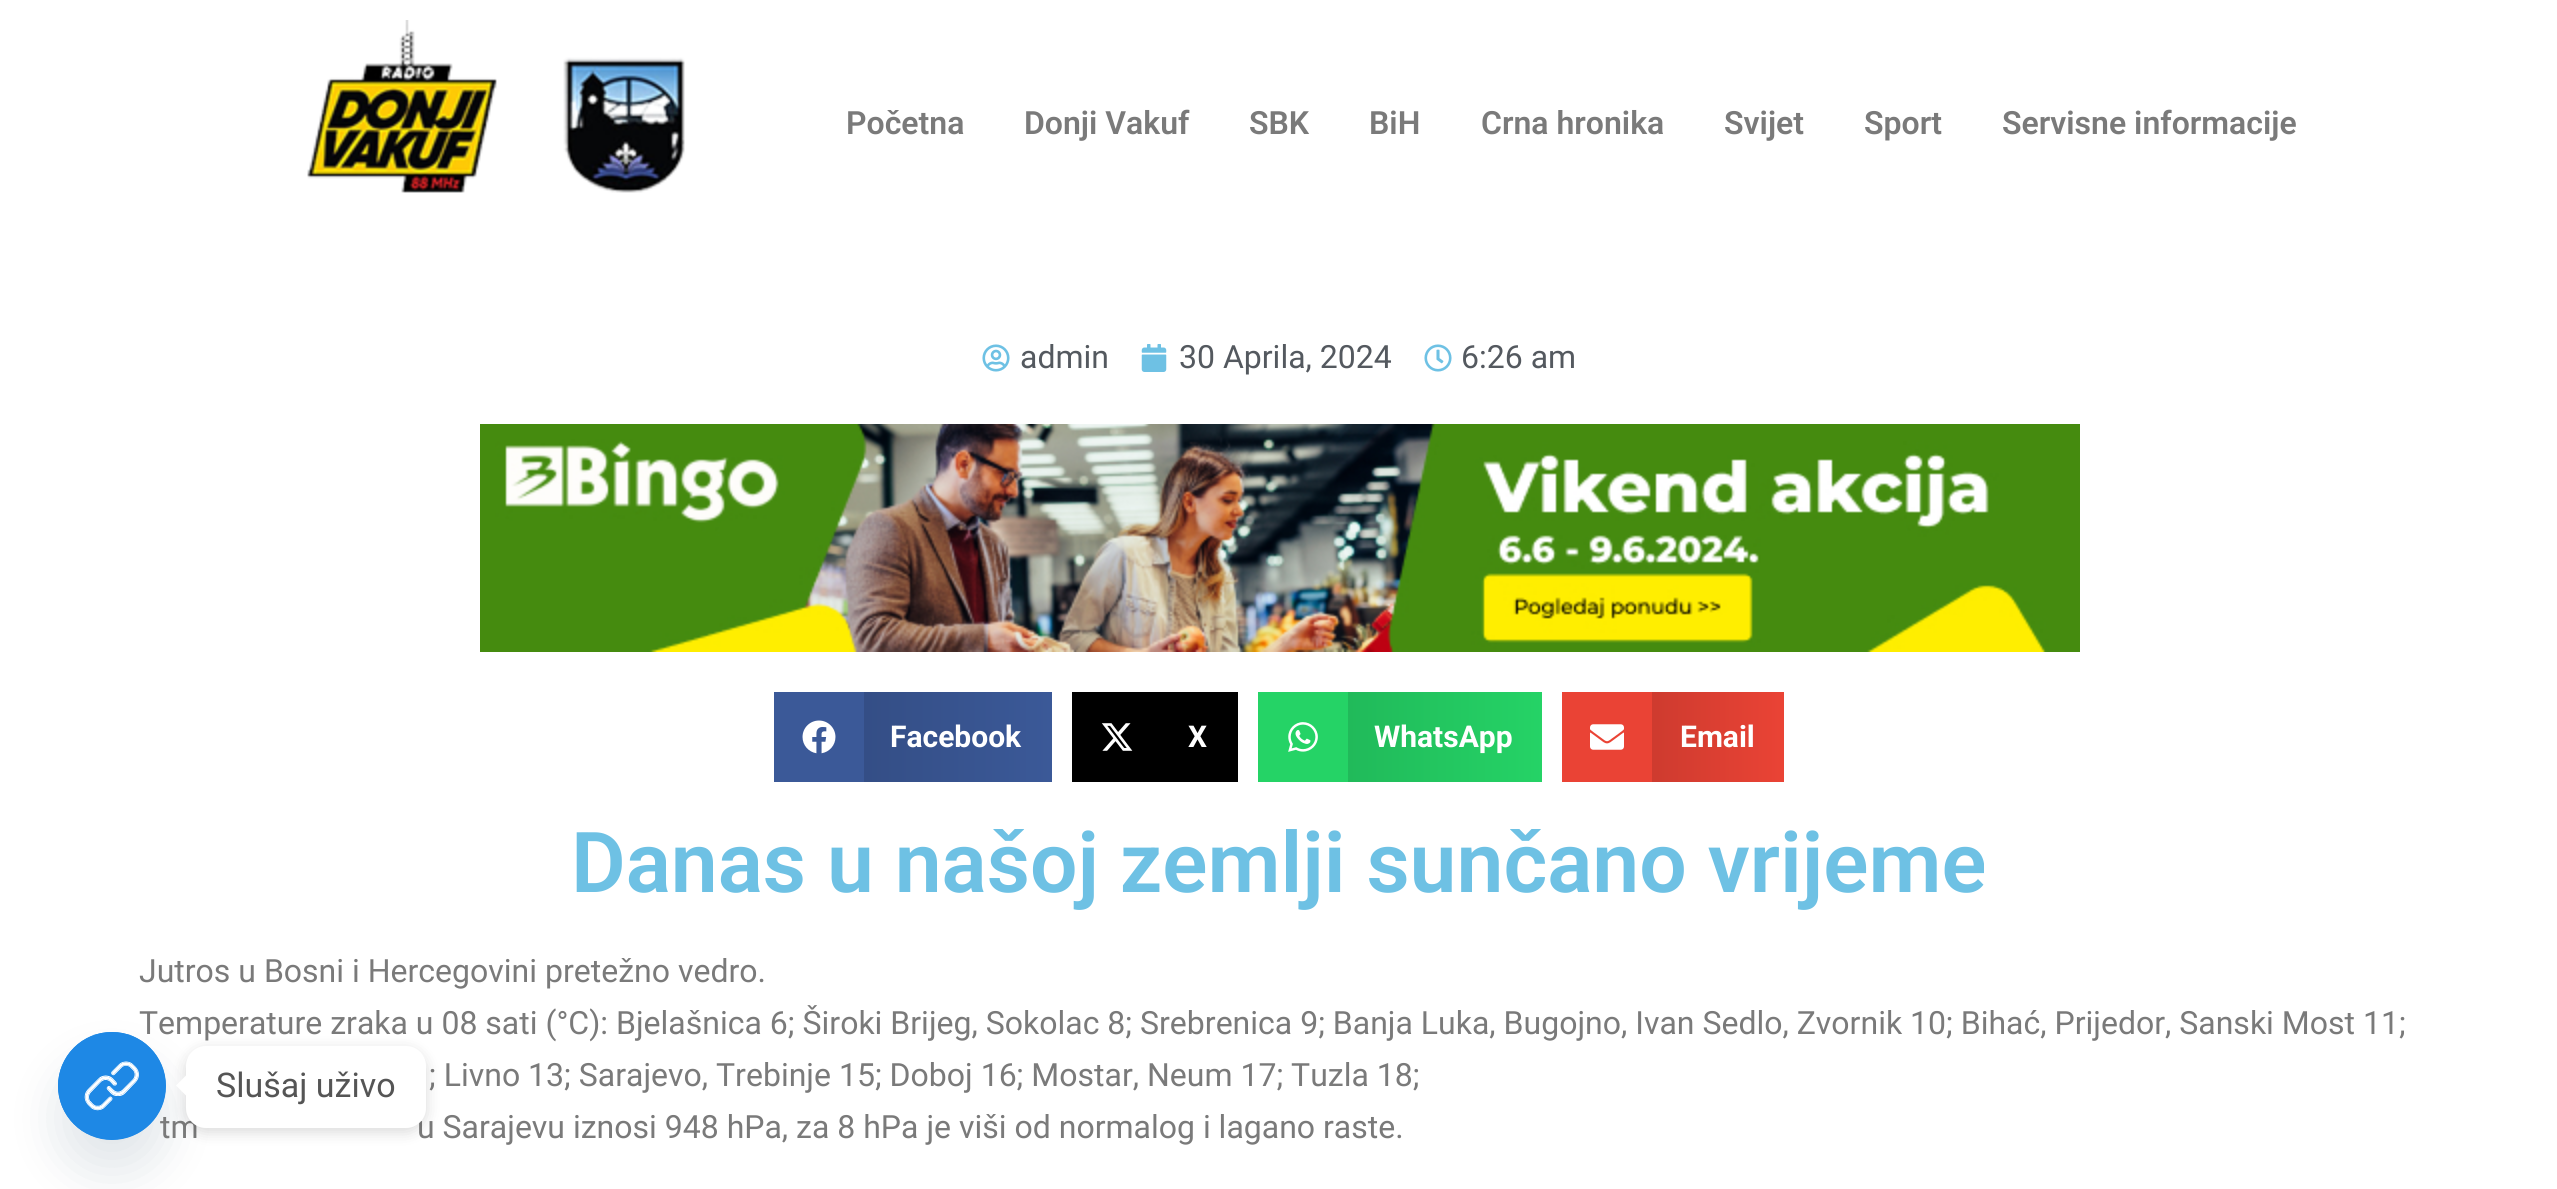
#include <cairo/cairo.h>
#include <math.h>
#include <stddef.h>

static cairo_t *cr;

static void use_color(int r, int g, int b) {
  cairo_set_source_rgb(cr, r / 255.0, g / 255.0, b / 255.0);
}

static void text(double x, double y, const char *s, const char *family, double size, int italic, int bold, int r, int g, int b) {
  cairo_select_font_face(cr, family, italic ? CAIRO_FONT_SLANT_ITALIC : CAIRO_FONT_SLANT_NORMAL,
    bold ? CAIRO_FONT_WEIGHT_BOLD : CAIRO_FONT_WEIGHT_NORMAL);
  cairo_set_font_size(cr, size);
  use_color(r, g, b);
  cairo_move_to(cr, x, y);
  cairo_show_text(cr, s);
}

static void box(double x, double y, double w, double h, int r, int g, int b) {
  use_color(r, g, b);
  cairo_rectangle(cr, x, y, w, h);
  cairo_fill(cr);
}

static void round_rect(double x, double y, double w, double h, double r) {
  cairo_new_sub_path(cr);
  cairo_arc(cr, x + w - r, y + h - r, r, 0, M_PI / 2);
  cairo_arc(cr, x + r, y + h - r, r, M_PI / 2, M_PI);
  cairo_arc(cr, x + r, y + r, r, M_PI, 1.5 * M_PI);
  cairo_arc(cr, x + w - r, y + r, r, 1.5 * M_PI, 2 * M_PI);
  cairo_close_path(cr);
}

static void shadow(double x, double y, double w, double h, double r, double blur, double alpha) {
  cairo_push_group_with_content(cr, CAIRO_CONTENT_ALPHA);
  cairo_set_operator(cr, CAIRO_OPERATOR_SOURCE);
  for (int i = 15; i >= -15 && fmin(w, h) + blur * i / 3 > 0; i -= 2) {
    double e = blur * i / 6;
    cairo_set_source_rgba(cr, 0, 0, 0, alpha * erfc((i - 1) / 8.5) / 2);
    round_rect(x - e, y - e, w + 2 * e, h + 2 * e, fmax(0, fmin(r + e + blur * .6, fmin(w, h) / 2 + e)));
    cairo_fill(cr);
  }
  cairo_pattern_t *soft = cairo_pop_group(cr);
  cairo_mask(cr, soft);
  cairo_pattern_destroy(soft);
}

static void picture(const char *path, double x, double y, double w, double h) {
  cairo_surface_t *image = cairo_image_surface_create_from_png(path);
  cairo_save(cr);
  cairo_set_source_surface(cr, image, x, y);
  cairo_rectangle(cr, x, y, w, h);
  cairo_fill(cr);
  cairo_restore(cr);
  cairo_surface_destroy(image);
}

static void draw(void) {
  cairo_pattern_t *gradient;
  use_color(255, 255, 255);
  cairo_paint(cr);
  picture("img_01.png", 307, 20, 378, 173);
  picture("img_02.png", 982, 344, 28, 28);
  picture("img_03.png", 1141, 344, 26, 28);
  picture("img_04.png", 1424, 344, 28, 28);
  picture("img_05.png", 480, 424, 1600, 228);
  box(774, 692, 90, 90, 59, 89, 152);
  picture("img_06.png", 802, 720, 34, 34);
  gradient = cairo_pattern_create_linear(864, 737, 1052, 737);
  cairo_pattern_add_color_stop_rgba(gradient, 0, 0.204, 0.306, 0.525, 1);
  cairo_pattern_add_color_stop_rgba(gradient, 1, 0.231, 0.349, 0.596, 1);
  cairo_set_source(cr, gradient);
  cairo_pattern_destroy(gradient);
  cairo_rectangle(cr, 864, 692, 188, 90);
  cairo_fill(cr);
  box(1072, 692, 166, 90, 0, 0, 0);
  picture("img_07.png", 1101, 723, 32, 28);
  box(1258, 692, 90, 90, 37, 211, 102);
  picture("img_08.png", 1288, 722, 30, 30);
  gradient = cairo_pattern_create_linear(1348, 737, 1542, 737);
  cairo_pattern_add_color_stop_rgba(gradient, 0, 0.129, 0.729, 0.353, 1);
  cairo_pattern_add_color_stop_rgba(gradient, 1, 0.145, 0.827, 0.4, 1);
  cairo_set_source(cr, gradient);
  cairo_pattern_destroy(gradient);
  cairo_rectangle(cr, 1348, 692, 194, 90);
  cairo_fill(cr);
  box(1562, 692, 90, 90, 234, 67, 53);
  picture("img_09.png", 1590, 724, 34, 26);
  gradient = cairo_pattern_create_linear(1652, 737, 1784, 737);
  cairo_pattern_add_color_stop_rgba(gradient, 0, 0.808, 0.231, 0.184, 1);
  cairo_pattern_add_color_stop_rgba(gradient, 1, 0.918, 0.263, 0.208, 1);
  cairo_set_source(cr, gradient);
  cairo_pattern_destroy(gradient);
  cairo_rectangle(cr, 1652, 692, 132, 90);
  cairo_fill(cr);
  use_color(73, 104, 126);
  shadow(58, 1064, 108, 108, 54, 24, 0.16);
  text(846, 134, "Početna", "Roboto SemiBold", 32, 0, 0, 122, 122, 122);
  text(1024, 134, "Donji Vakuf", "Roboto SemiBold", 32, 0, 0, 122, 122, 122);
  text(1249, 134, "SBK", "Roboto SemiBold", 32, 0, 0, 122, 122, 122);
  text(1369, 134, "BiH", "Roboto SemiBold", 32, 0, 0, 122, 122, 122);
  text(1481, 134, "Crna hronika", "Roboto SemiBold", 32, 0, 0, 122, 122, 122);
  text(1724, 134, "Svijet", "Roboto SemiBold", 32, 0, 0, 122, 122, 122);
  text(1864, 134, "Sport", "Roboto SemiBold", 32, 0, 0, 122, 122, 122);
  text(2002, 134, "Servisne informacije", "Roboto SemiBold", 32, 0, 0, 122, 122, 122);
  text(1020, 368, "admin", "Roboto", 32, 0, 0, 84, 89, 95);
  text(1179, 368, "30 Aprila, 2024", "Roboto", 32, 0, 0, 84, 89, 95);
  text(1461, 368, "6:26 am", "Roboto", 32, 0, 0, 84, 89, 95);
  text(890, 747, "Facebook", "Roboto", 30, 0, 1, 255, 255, 255);
  text(1188, 747, "X", "Roboto", 30, 0, 1, 255, 255, 255);
  text(1374, 747, "WhatsApp", "Roboto", 30, 0, 1, 255, 255, 255);
  text(1680, 747, "Email", "Roboto", 30, 0, 1, 255, 255, 255);
  text(571, 892, "Danas u našoj zemlji sunčano vrijeme", "Roboto SemiBold", 84, 0, 0, 110, 193, 228);
  text(139, 982, "Jutros u Bosni i Hercegovini pretežno vedro.", "Roboto", 32, 0, 0, 122, 122, 122);
  text(139, 1034, "Temperature zraka u 08 sati (°C): Bjelašnica 6; Široki Brijeg, Sokolac 8; Srebrenica 9; Banja Luka, Bugojno, Ivan Sedlo, Zvornik 10; Bihać, Prijedor, Sanski Most 11;", "Roboto", 32, 0, 0, 122, 122, 122);
  text(429, 1086, "; Livno 13; Sarajevo, Trebinje 15; Doboj 16; Mostar, Neum 17; Tuzla 18;", "Roboto", 32, 0, 0, 122, 122, 122);
  text(160, 1138, "tm", "Roboto", 32, 0, 0, 122, 122, 122);
  text(417, 1138, "u Sarajevu iznosi 948 hPa, za 8 hPa je viši od normalog i lagano raste.", "Roboto", 32, 0, 0, 122, 122, 122);
  use_color(30, 136, 229);
  cairo_new_path(cr);
  cairo_arc(cr, 112, 1086, 54, 0, 2 * M_PI);
  cairo_fill(cr);
  picture("img_10.png", 58, 1032, 108, 108);
  use_color(0, 0, 0);
  shadow(186, 1050, 240, 82, 20, 7.5, 0.15);
  use_color(255, 255, 255);
  round_rect(186, 1046, 240, 82, 20);
  cairo_fill(cr);
  cairo_new_path(cr);
  cairo_move_to(cr, 186, 1075.5);
  cairo_line_to(cr, 186, 1095.5);
  cairo_line_to(cr, 176, 1085.5);
  cairo_close_path(cr);
  cairo_fill(cr);
  text(216, 1097, "Slušaj uživo", "Roboto", 34, 0, 0, 85, 85, 85);
}

int main(void) {
  cairo_surface_t *surface = cairo_image_surface_create(CAIRO_FORMAT_RGB24, 2557, 1189);
  cr = cairo_create(surface);
  cairo_font_options_t *options = cairo_font_options_create();
  cairo_font_options_set_hint_metrics(options, CAIRO_HINT_METRICS_OFF);
  cairo_font_options_set_hint_style(options, CAIRO_HINT_STYLE_NONE);
  cairo_set_font_options(cr, options);
  cairo_set_miter_limit(cr, 4);
  draw();
  cairo_surface_write_to_png(surface, "out.png");
  cairo_font_options_destroy(options);
  cairo_destroy(cr);
  cairo_surface_destroy(surface);
  return 0;
}
